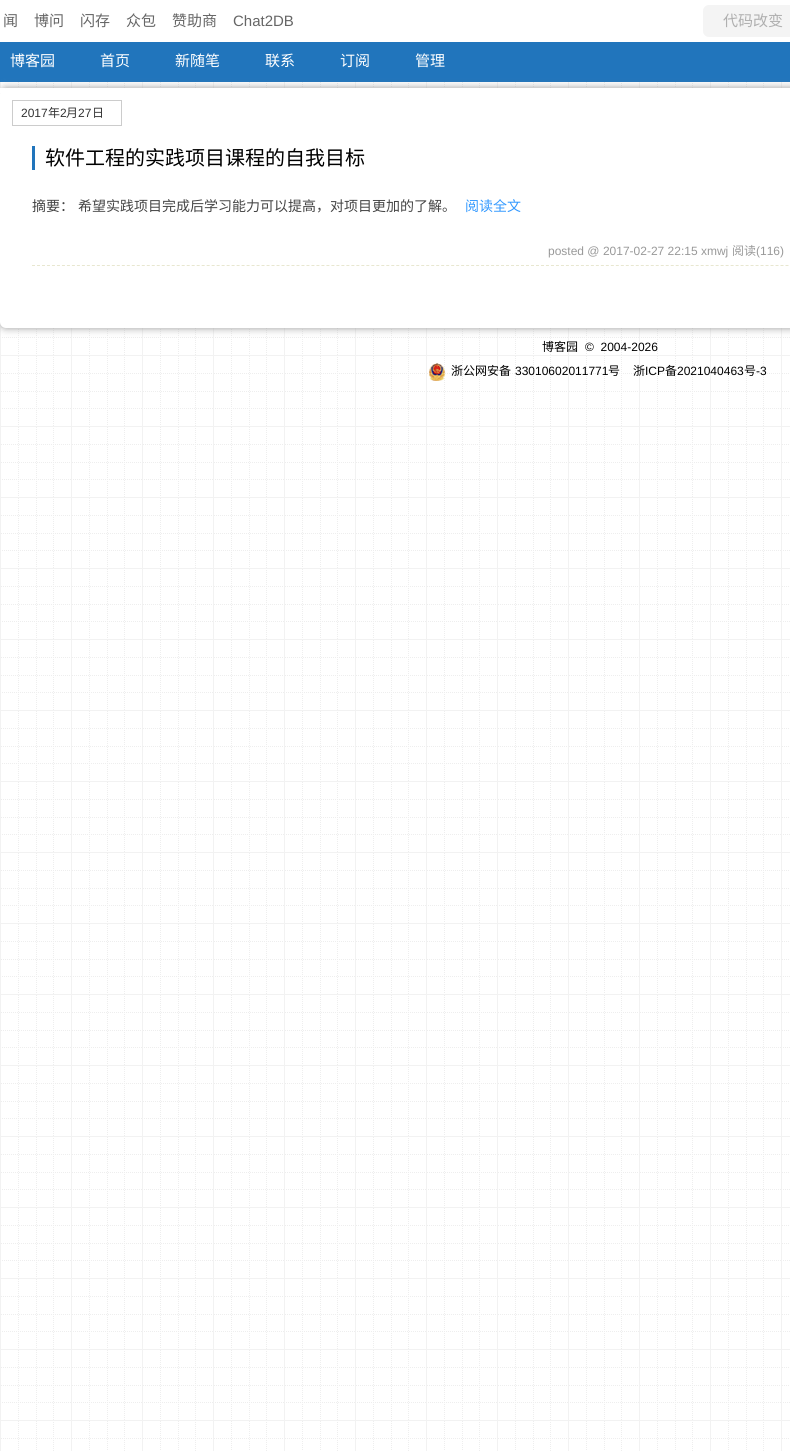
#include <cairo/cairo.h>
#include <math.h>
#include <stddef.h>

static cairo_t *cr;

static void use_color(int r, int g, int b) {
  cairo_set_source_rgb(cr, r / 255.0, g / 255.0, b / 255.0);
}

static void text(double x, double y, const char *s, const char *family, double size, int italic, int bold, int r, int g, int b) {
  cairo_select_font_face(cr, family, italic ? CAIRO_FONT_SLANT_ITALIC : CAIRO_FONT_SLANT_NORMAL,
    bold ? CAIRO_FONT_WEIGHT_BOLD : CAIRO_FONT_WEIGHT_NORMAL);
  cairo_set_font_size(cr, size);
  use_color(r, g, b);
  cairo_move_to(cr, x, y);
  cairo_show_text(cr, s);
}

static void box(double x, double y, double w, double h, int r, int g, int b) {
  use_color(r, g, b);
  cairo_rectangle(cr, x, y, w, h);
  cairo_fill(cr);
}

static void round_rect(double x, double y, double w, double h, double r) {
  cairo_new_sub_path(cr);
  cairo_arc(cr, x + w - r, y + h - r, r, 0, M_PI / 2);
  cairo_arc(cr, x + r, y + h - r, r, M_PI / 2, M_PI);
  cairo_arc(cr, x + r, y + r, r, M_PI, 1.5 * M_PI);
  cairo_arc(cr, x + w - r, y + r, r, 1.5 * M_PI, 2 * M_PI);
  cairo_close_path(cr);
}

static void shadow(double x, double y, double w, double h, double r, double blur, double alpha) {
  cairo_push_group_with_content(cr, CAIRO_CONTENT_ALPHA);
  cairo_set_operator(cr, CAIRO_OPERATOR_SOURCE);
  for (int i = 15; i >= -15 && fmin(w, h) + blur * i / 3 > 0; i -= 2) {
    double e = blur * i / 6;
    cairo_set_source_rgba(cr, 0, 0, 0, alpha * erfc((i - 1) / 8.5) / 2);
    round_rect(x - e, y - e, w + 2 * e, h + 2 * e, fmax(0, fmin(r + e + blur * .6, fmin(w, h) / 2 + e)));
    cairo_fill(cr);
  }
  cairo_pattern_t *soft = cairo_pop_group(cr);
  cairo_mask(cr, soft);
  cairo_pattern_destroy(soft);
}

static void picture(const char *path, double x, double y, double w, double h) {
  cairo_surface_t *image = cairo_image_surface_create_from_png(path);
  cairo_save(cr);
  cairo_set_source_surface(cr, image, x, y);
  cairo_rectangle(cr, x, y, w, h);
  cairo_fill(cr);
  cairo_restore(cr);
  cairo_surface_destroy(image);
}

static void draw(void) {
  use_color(255, 255, 255);
  cairo_paint(cr);
  picture("img_01.png", 0, 82, 790, 1369);
  use_color(244, 244, 244);
  round_rect(703, 5, 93, 32, 6);
  cairo_fill(cr);
  box(0, 42, 790, 40, 33, 117, 188);
  box(0, 322, 6, 6, 245, 245, 245);
  use_color(153, 153, 153);
  shadow(0, 88, 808, 240, 6, 4, 1);
  use_color(255, 255, 255);
  round_rect(0, 88, 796, 240, 6);
  cairo_fill(cr);
  box(0, 88, 5, 5, 255, 255, 255);
  cairo_rectangle(cr, 12.5, 100.5, 109, 25);
  use_color(204, 204, 204);
  cairo_set_line_width(cr, 1);
  cairo_stroke(cr);
  box(32, 146, 3, 24, 33, 117, 188);
  cairo_new_path(cr);
  cairo_move_to(cr, 32, 265.5);
  cairo_line_to(cr, 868, 265.5);
  use_color(232, 231, 208);
  cairo_set_dash(cr, (double[]){3, 1.99}, 2, 0);
  cairo_stroke(cr);
  picture("img_02.png", 429, 363, 17, 18);
  text(3, 26, "闻", "Noto Sans CJK SC", 15, 0, 0, 102, 102, 102);
  text(34, 26, "博问", "Noto Sans CJK SC", 15, 0, 0, 102, 102, 102);
  text(80, 26, "闪存", "Noto Sans CJK SC", 15, 0, 0, 102, 102, 102);
  text(126, 26, "众包", "Noto Sans CJK SC", 15, 0, 0, 102, 102, 102);
  text(172, 26, "赞助商", "Noto Sans CJK SC", 15, 0, 0, 102, 102, 102);
  text(233, 26, "Chat2DB", "Liberation Sans", 15, 0, 0, 102, 102, 102);
  text(723, 26, "代码改变", "Noto Sans CJK SC", 15, 0, 0, 175, 175, 175);
  text(10, 66, "博客园", "Noto Sans CJK SC", 15, 0, 0, 255, 255, 255);
  text(100, 66, "首页", "Noto Sans CJK SC", 15, 0, 0, 255, 255, 255);
  text(175, 66, "新随笔", "Noto Sans CJK SC", 15, 0, 0, 255, 255, 255);
  text(265, 66, "联系", "Noto Sans CJK SC", 15, 0, 0, 255, 255, 255);
  text(340, 66, "订阅", "Noto Sans CJK SC", 15, 0, 0, 255, 255, 255);
  text(415, 66, "管理", "Noto Sans CJK SC", 15, 0, 0, 255, 255, 255);
  text(21, 117, "2017", "Liberation Sans", 12, 0, 0, 51, 51, 51);
  text(48, 117, "年", "Noto Sans CJK SC", 12, 0, 0, 51, 51, 51);
  text(60, 117, "2", "Liberation Sans", 12, 0, 0, 51, 51, 51);
  text(66, 117, "月", "Noto Sans CJK SC", 12, 0, 0, 51, 51, 51);
  text(78, 117, "27", "Liberation Sans", 12, 0, 0, 51, 51, 51);
  text(92, 117, "日", "Noto Sans CJK SC", 12, 0, 0, 51, 51, 51);
  text(45, 165, "软件工程的实践项目课程的自我目标", "Noto Sans CJK SC", 20, 0, 0, 0, 0, 0);
  text(32, 211, "摘要：", "Noto Sans CJK SC", 14, 0, 0, 68, 68, 68);
  text(78, 211, "希望实践项目完成后学习能力可以提高，对项目更加的了解。", "Noto Sans CJK SC", 14, 0, 0, 68, 68, 68);
  text(465, 211, "阅读全文", "Noto Sans CJK SC", 14, 0, 0, 51, 153, 255);
  text(548, 255, "posted @ 2017-02-27 22:15 xmwj", "Liberation Sans", 12, 0, 0, 153, 153, 153);
  text(732, 255, "阅读", "Noto Sans CJK SC", 12, 0, 0, 153, 153, 153);
  text(756, 255, "(116)", "Liberation Sans", 12, 0, 0, 153, 153, 153);
  text(542, 351, "博客园", "Noto Sans CJK SC", 12, 0, 0, 0, 0, 0);
  text(585, 351, "©  2004-2026", "Liberation Sans", 12, 0, 0, 0, 0, 0);
  text(451, 375, "浙公网安备", "Noto Sans CJK SC", 12, 0, 0, 0, 0, 0);
  text(515, 375, "33010602011771", "Liberation Sans", 12, 0, 0, 0, 0, 0);
  text(608, 375, "号", "Noto Sans CJK SC", 12, 0, 0, 0, 0, 0);
  text(633, 375, "浙", "Noto Sans CJK SC", 12, 0, 0, 0, 0, 0);
  text(645, 375, "ICP", "Liberation Sans", 12, 0, 0, 0, 0, 0);
  text(665, 375, "备", "Noto Sans CJK SC", 12, 0, 0, 0, 0, 0);
  text(677, 375, "2021040463", "Liberation Sans", 12, 0, 0, 0, 0, 0);
  text(744, 375, "号", "Noto Sans CJK SC", 12, 0, 0, 0, 0, 0);
  text(756, 375, "-3", "Liberation Sans", 12, 0, 0, 0, 0, 0);
}

int main(void) {
  cairo_surface_t *surface = cairo_image_surface_create(CAIRO_FORMAT_RGB24, 790, 1451);
  cr = cairo_create(surface);
  cairo_font_options_t *options = cairo_font_options_create();
  cairo_font_options_set_hint_metrics(options, CAIRO_HINT_METRICS_OFF);
  cairo_font_options_set_hint_style(options, CAIRO_HINT_STYLE_NONE);
  cairo_set_font_options(cr, options);
  cairo_set_miter_limit(cr, 4);
  draw();
  cairo_surface_write_to_png(surface, "out.png");
  cairo_font_options_destroy(options);
  cairo_destroy(cr);
  cairo_surface_destroy(surface);
  return 0;
}
